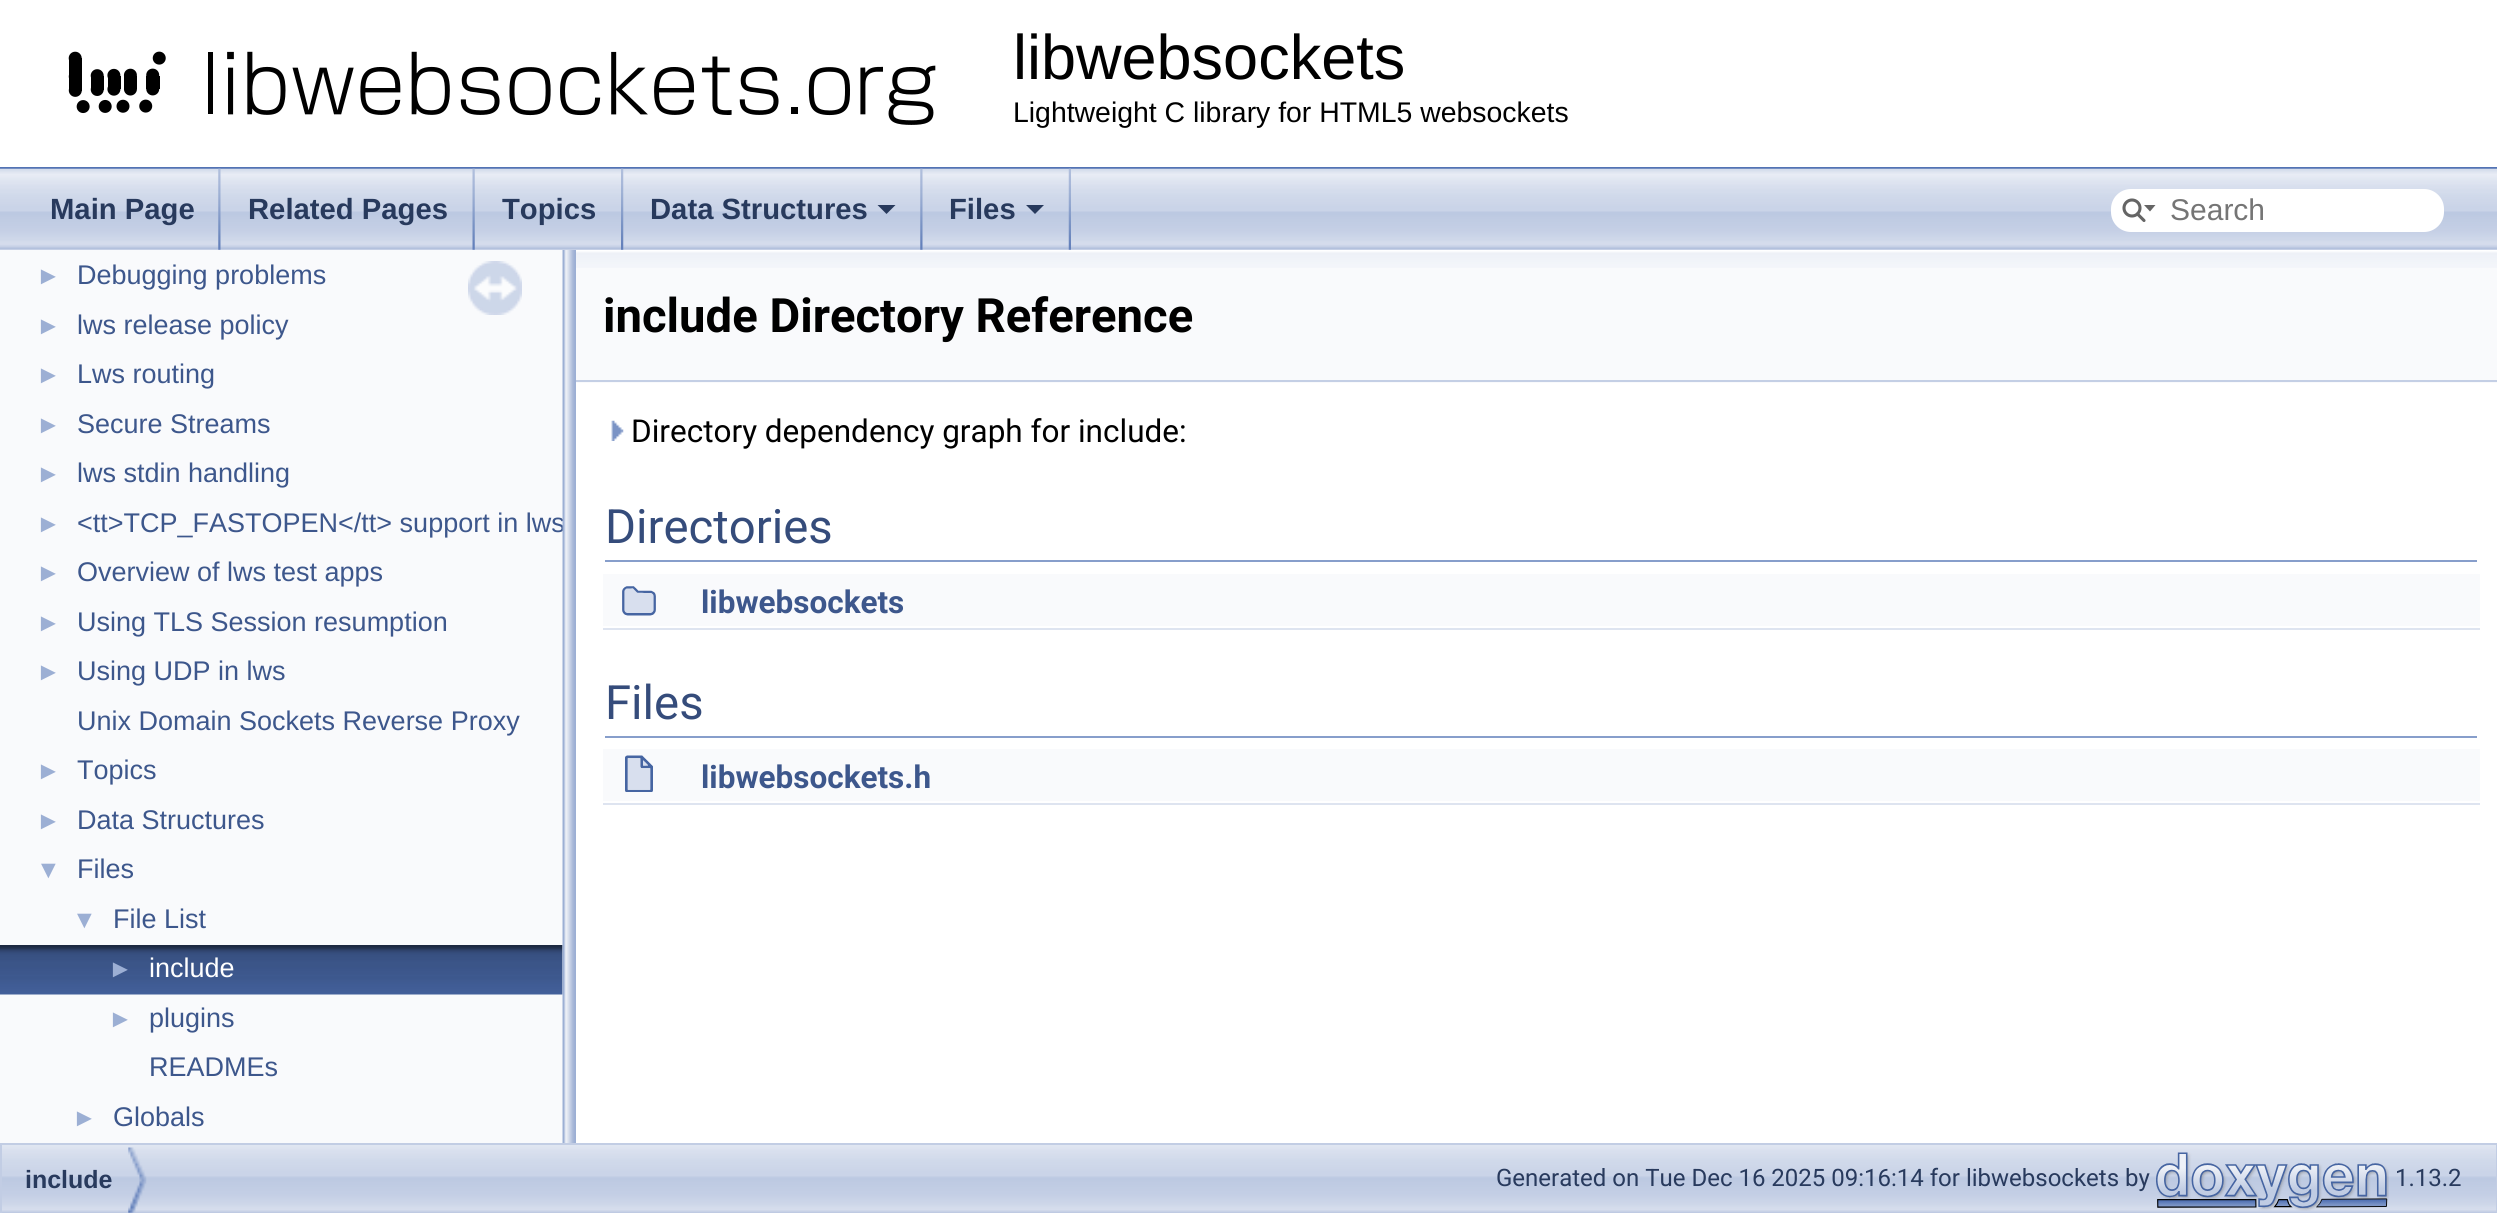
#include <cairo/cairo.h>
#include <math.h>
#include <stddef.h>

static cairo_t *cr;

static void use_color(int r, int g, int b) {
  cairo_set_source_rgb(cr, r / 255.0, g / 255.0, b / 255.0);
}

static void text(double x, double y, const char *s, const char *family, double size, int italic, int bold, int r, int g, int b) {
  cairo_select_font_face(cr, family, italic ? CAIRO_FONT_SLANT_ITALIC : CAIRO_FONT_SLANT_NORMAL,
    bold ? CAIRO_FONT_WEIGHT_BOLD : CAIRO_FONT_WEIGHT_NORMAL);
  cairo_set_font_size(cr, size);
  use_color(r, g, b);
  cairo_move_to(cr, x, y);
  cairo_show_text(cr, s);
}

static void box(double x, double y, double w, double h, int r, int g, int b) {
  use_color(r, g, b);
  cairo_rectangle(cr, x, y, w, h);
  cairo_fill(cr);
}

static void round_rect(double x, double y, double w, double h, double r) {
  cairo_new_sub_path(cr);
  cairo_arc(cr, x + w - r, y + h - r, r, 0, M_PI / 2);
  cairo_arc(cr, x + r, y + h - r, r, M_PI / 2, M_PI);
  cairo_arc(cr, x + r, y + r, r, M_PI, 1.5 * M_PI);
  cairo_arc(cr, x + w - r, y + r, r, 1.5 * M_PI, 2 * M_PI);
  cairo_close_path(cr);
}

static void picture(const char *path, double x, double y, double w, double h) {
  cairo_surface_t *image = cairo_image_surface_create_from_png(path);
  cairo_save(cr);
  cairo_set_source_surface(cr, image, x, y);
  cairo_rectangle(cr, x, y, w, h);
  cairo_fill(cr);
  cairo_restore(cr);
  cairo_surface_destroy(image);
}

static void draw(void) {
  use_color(255, 255, 255);
  cairo_paint(cr);
  box(0, 167, 2497, 2, 83, 115, 180);
  picture("img_01.png", 68, 51, 868, 74);
  box(0, 250, 563, 893, 249, 250, 252);
  picture("img_07.png", 468, 261, 54, 54);
  picture("img_08.png", 0, 945, 563, 50);
  box(576, 268, 1921, 115, 249, 250, 252);
  picture("img_10.png", 576, 250, 1921, 18);
  box(576, 380, 1921, 2, 196, 207, 229);
  picture("img_11.png", 611, 420, 13, 21);
  box(605, 560, 1872, 2, 135, 158, 203);
  box(603, 574, 1877, 52, 249, 250, 252);
  picture("img_12.png", 622, 586, 34, 30);
  box(603, 628, 1877, 2, 222, 228, 240);
  box(605, 736, 1872, 2, 135, 158, 203);
  box(603, 749, 1877, 52, 249, 250, 252);
  picture("img_13.png", 625, 755, 28, 37);
  box(603, 803, 1877, 2, 222, 228, 240);
  picture("img_14.png", 2, 1145, 2494, 68);
  cairo_rectangle(cr, 1, 1144, 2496, 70);
  use_color(194, 205, 228);
  cairo_stroke(cr);
  picture("img_15.png", 128, 1147, 19, 66);
  picture("img_16.png", 2156, 1152, 233, 59);
  text(1013, 79, "libwebsockets", "Liberation Sans", 63, 0, 0, 0, 0, 0);
  text(1013, 122, "Lightweight C library for HTML5 websockets", "Liberation Sans", 28.4, 0, 0, 0, 0, 0);
  text(36, 284, "►", "Liberation Sans", 25, 0, 0, 156, 175, 212);
  text(77, 284, "Debugging problems", "Liberation Sans", 27, 0, 0, 61, 87, 140);
  text(36, 334, "►", "Liberation Sans", 25, 0, 0, 156, 175, 212);
  text(77, 334, "lws release policy", "Liberation Sans", 27, 0, 0, 61, 87, 140);
  text(36, 383, "►", "Liberation Sans", 25, 0, 0, 156, 175, 212);
  text(77, 383, "Lws routing", "Liberation Sans", 27, 0, 0, 61, 87, 140);
  text(36, 433, "►", "Liberation Sans", 25, 0, 0, 156, 175, 212);
  text(77, 433, "Secure Streams", "Liberation Sans", 27, 0, 0, 61, 87, 140);
  text(36, 482, "►", "Liberation Sans", 25, 0, 0, 156, 175, 212);
  text(77, 482, "lws stdin handling", "Liberation Sans", 27, 0, 0, 61, 87, 140);
  text(36, 532, "►", "Liberation Sans", 25, 0, 0, 156, 175, 212);
  text(77, 532, "<tt>TCP_FASTOPEN</tt> support in lws", "Liberation Sans", 27, 0, 0, 61, 87, 140);
  text(36, 581, "►", "Liberation Sans", 25, 0, 0, 156, 175, 212);
  text(77, 581, "Overview of lws test apps", "Liberation Sans", 27, 0, 0, 61, 87, 140);
  text(36, 631, "►", "Liberation Sans", 25, 0, 0, 156, 175, 212);
  text(77, 631, "Using TLS Session resumption", "Liberation Sans", 27, 0, 0, 61, 87, 140);
  text(36, 680, "►", "Liberation Sans", 25, 0, 0, 156, 175, 212);
  text(77, 680, "Using UDP in lws", "Liberation Sans", 27, 0, 0, 61, 87, 140);
  text(77, 730, "Unix Domain Sockets Reverse Proxy", "Liberation Sans", 27, 0, 0, 61, 87, 140);
  text(36, 779, "►", "Liberation Sans", 25, 0, 0, 156, 175, 212);
  text(77, 779, "Topics", "Liberation Sans", 27, 0, 0, 61, 87, 140);
  text(36, 829, "►", "Liberation Sans", 25, 0, 0, 156, 175, 212);
  text(77, 829, "Data Structures", "Liberation Sans", 27, 0, 0, 61, 87, 140);
  text(36, 878, "▼", "Liberation Sans", 25, 0, 0, 156, 175, 212);
  text(77, 878, "Files", "Liberation Sans", 27, 0, 0, 61, 87, 140);
  text(72, 928, "▼", "Liberation Sans", 25, 0, 0, 156, 175, 212);
  text(113, 928, "File List", "Liberation Sans", 27, 0, 0, 61, 87, 140);
  text(108, 977, "►", "Liberation Sans", 25, 0, 0, 156, 175, 212);
  text(149, 977, "include", "Liberation Sans", 27, 0, 0, 255, 255, 255);
  text(108, 1027, "►", "Liberation Sans", 25, 0, 0, 156, 175, 212);
  text(149, 1027, "plugins", "Liberation Sans", 27, 0, 0, 61, 87, 140);
  text(149, 1076, "READMEs", "Liberation Sans", 27, 0, 0, 61, 87, 140);
  text(72, 1126, "►", "Liberation Sans", 25, 0, 0, 156, 175, 212);
  text(113, 1126, "Globals", "Liberation Sans", 27, 0, 0, 61, 87, 140);
  picture("img_09.png", 562, 249, 14, 894);
  picture("img_02.png", 0, 168, 2497, 82);
  use_color(255, 255, 255);
  round_rect(2111, 189, 333, 43, 20);
  cairo_fill(cr);
  text(2170, 220, "Search", "Liberation Sans", 30, 0, 0, 117, 117, 117);
  cairo_new_path(cr);
  cairo_arc(cr, 2132, 208, 8, 0, 2 * M_PI);
  use_color(101, 101, 101);
  cairo_set_line_width(cr, 3.1);
  cairo_stroke(cr);
  cairo_new_path(cr);
  cairo_move_to(cr, 2137.5, 214);
  cairo_line_to(cr, 2144, 220.5);
  cairo_set_line_cap(cr, CAIRO_LINE_CAP_ROUND);
  cairo_stroke(cr);
  cairo_new_path(cr);
  cairo_move_to(cr, 2144, 205);
  cairo_line_to(cr, 2150, 211.5);
  cairo_line_to(cr, 2155.5, 205);
  cairo_close_path(cr);
  cairo_fill(cr);
  use_color(40, 58, 93);
  cairo_new_path(cr);
  cairo_move_to(cr, 1026, 205);
  cairo_line_to(cr, 1044, 205);
  cairo_line_to(cr, 1035, 214);
  cairo_close_path(cr);
  cairo_fill(cr);
  text(949, 219, "Files", "Liberation Sans", 29.25, 0, 1, 40, 58, 93);
  picture("img_06.png", 1068, 168, 3, 82);
  cairo_new_path(cr);
  cairo_move_to(cr, 877.5, 205);
  cairo_line_to(cr, 895.5, 205);
  cairo_line_to(cr, 886.5, 214);
  cairo_close_path(cr);
  cairo_fill(cr);
  text(650, 219, "Data Structures", "Liberation Sans", 29.25, 0, 1, 40, 58, 93);
  picture("img_03.png", 920, 168, 3, 82);
  text(502, 219, "Topics", "Liberation Sans", 29.25, 0, 1, 40, 58, 93);
  picture("img_05.png", 621, 168, 3, 82);
  text(248, 219, "Related Pages", "Liberation Sans", 29.25, 0, 1, 40, 58, 93);
  picture("img_04.png", 472, 168, 3, 82);
  text(50, 219, "Main Page", "Liberation Sans", 29.25, 0, 1, 40, 58, 93);
  picture("img_03.png", 218, 168, 3, 82);
  text(603, 332, "include Directory Reference", "Roboto", 47.25, 0, 1, 0, 0, 0);
  text(631, 442, "Directory dependency graph for include:", "Roboto", 31.5, 0, 0, 0, 0, 0);
  text(605, 543, "Directories", "Roboto", 47.25, 0, 0, 53, 76, 123);
  text(701, 613, "libwebsockets", "Roboto", 31.5, 0, 1, 61, 87, 140);
  text(605, 719, "Files", "Roboto", 47.25, 0, 0, 53, 76, 123);
  text(701, 788, "libwebsockets.h", "Roboto", 31.5, 0, 1, 61, 87, 140);
  text(25, 1188, "include", "Liberation Sans", 25, 0, 1, 40, 58, 93);
  text(1496, 1186, "Generated on Tue Dec 16 2025 09:16:14 for libwebsockets by", "Roboto", 24, 0, 0, 40, 58, 93);
  text(2395, 1186, "1.13.2", "Roboto", 24, 0, 0, 40, 58, 93);
}

int main(void) {
  cairo_surface_t *surface = cairo_image_surface_create(CAIRO_FORMAT_RGB24, 2497, 1213);
  cr = cairo_create(surface);
  cairo_font_options_t *options = cairo_font_options_create();
  cairo_font_options_set_hint_metrics(options, CAIRO_HINT_METRICS_OFF);
  cairo_font_options_set_hint_style(options, CAIRO_HINT_STYLE_NONE);
  cairo_set_font_options(cr, options);
  cairo_set_miter_limit(cr, 4);
  draw();
  cairo_surface_write_to_png(surface, "out.png");
  cairo_font_options_destroy(options);
  cairo_destroy(cr);
  cairo_surface_destroy(surface);
  return 0;
}
